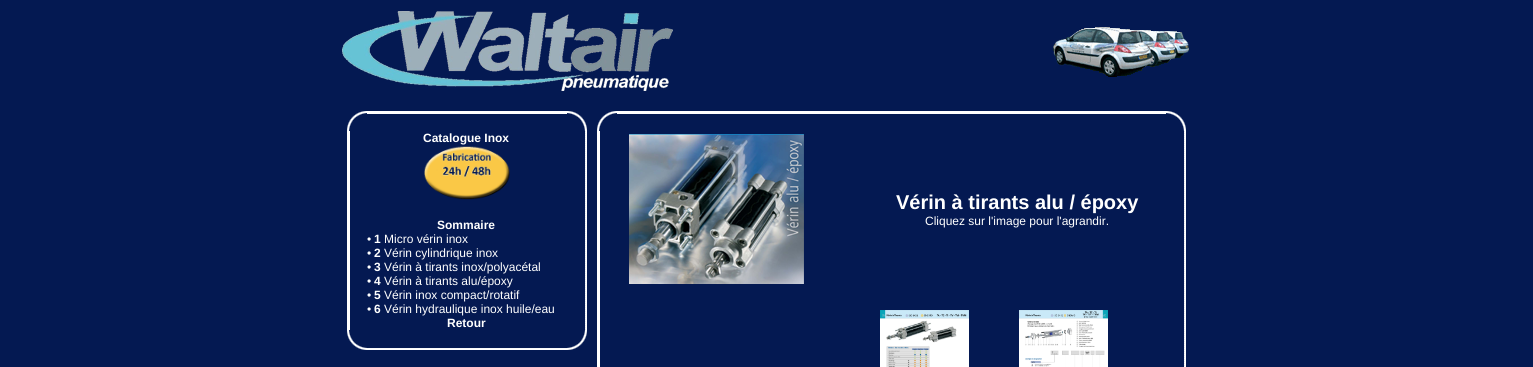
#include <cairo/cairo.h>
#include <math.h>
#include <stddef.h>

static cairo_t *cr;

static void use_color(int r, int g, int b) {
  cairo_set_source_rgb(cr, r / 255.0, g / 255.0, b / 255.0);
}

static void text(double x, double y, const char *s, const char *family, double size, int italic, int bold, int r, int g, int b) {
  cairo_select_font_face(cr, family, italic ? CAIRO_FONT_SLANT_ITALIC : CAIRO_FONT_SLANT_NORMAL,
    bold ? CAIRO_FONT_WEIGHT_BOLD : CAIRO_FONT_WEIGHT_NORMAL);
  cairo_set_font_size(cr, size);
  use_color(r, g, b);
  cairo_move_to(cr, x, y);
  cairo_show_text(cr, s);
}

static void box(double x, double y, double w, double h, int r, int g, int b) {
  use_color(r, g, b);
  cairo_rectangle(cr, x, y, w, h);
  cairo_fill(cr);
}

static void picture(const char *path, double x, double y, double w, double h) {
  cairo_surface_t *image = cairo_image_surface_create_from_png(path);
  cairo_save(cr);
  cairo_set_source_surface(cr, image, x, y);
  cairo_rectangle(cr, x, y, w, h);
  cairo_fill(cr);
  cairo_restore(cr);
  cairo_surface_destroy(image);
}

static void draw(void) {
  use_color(4, 25, 82);
  cairo_paint(cr);
  picture("img_01.png", 342, 11, 331, 80);
  picture("img_02.png", 1053, 27, 136, 50);
  picture("img_03.png", 347, 111, 20, 20);
  box(367, 111, 200, 3, 255, 255, 255);
  picture("img_04.png", 567, 111, 20, 20);
  box(347, 131, 3, 199, 255, 255, 255);
  picture("img_05.png", 424, 146, 86, 54);
  picture("img_06.png", 585, 131, 2, 199);
  picture("img_07.png", 347, 330, 20, 20);
  picture("img_08.png", 367, 348, 200, 2);
  picture("img_09.png", 567, 330, 20, 20);
  picture("img_03.png", 597, 111, 20, 20);
  box(617, 111, 549, 3, 255, 255, 255);
  picture("img_04.png", 1166, 111, 20, 20);
  box(597, 131, 3, 236, 255, 255, 255);
  picture("img_10.png", 629, 134, 175, 150);
  picture("img_11.png", 880, 310, 89, 57);
  picture("img_12.png", 1019, 310, 89, 57);
  picture("img_13.png", 1184, 131, 2, 236);
  text(423, 142, "Catalogue Inox", "Liberation Sans", 12, 0, 1, 255, 255, 255);
  text(437, 229, "Sommaire", "Liberation Sans", 12, 0, 1, 255, 255, 255);
  text(367, 243, "•", "Liberation Sans", 12, 0, 0, 255, 255, 255);
  text(374, 243, "1", "Liberation Sans", 12, 0, 1, 255, 255, 255);
  text(384, 243, "Micro vérin inox", "Liberation Sans", 12, 0, 0, 255, 255, 255);
  text(367, 257, "•", "Liberation Sans", 12, 0, 0, 255, 255, 255);
  text(374, 257, "2", "Liberation Sans", 12, 0, 1, 255, 255, 255);
  text(384, 257, "Vérin cylindrique inox", "Liberation Sans", 12, 0, 0, 255, 255, 255);
  text(367, 271, "•", "Liberation Sans", 12, 0, 0, 255, 255, 255);
  text(374, 271, "3", "Liberation Sans", 12, 0, 1, 255, 255, 255);
  text(384, 271, "Vérin à tirants inox/polyacétal", "Liberation Sans", 12, 0, 0, 255, 255, 255);
  text(367, 285, "•", "Liberation Sans", 12, 0, 0, 255, 255, 255);
  text(374, 285, "4", "Liberation Sans", 12, 0, 1, 255, 255, 255);
  text(384, 285, "Vérin à tirants alu/époxy", "Liberation Sans", 12, 0, 0, 255, 255, 255);
  text(367, 299, "•", "Liberation Sans", 12, 0, 0, 255, 255, 255);
  text(374, 299, "5", "Liberation Sans", 12, 0, 1, 255, 255, 255);
  text(384, 299, "Vérin inox compact/rotatif", "Liberation Sans", 12, 0, 0, 255, 255, 255);
  text(367, 313, "•", "Liberation Sans", 12, 0, 0, 255, 255, 255);
  text(374, 313, "6", "Liberation Sans", 12, 0, 1, 255, 255, 255);
  text(384, 313, "Vérin hydraulique inox huile/eau", "Liberation Sans", 12, 0, 0, 255, 255, 255);
  text(447, 327, "Retour", "Liberation Sans", 12, 0, 1, 255, 255, 255);
  text(896, 209, "Vérin à tirants alu / époxy", "Liberation Sans", 20, 0, 1, 255, 255, 255);
  text(925, 225, "Cliquez sur l'image pour l'agrandir.", "Liberation Sans", 12, 0, 0, 255, 255, 255);
}

int main(void) {
  cairo_surface_t *surface = cairo_image_surface_create(CAIRO_FORMAT_RGB24, 1533, 367);
  cr = cairo_create(surface);
  cairo_font_options_t *options = cairo_font_options_create();
  cairo_font_options_set_hint_metrics(options, CAIRO_HINT_METRICS_OFF);
  cairo_font_options_set_hint_style(options, CAIRO_HINT_STYLE_NONE);
  cairo_set_font_options(cr, options);
  cairo_set_miter_limit(cr, 4);
  draw();
  cairo_surface_write_to_png(surface, "out.png");
  cairo_font_options_destroy(options);
  cairo_destroy(cr);
  cairo_surface_destroy(surface);
  return 0;
}
